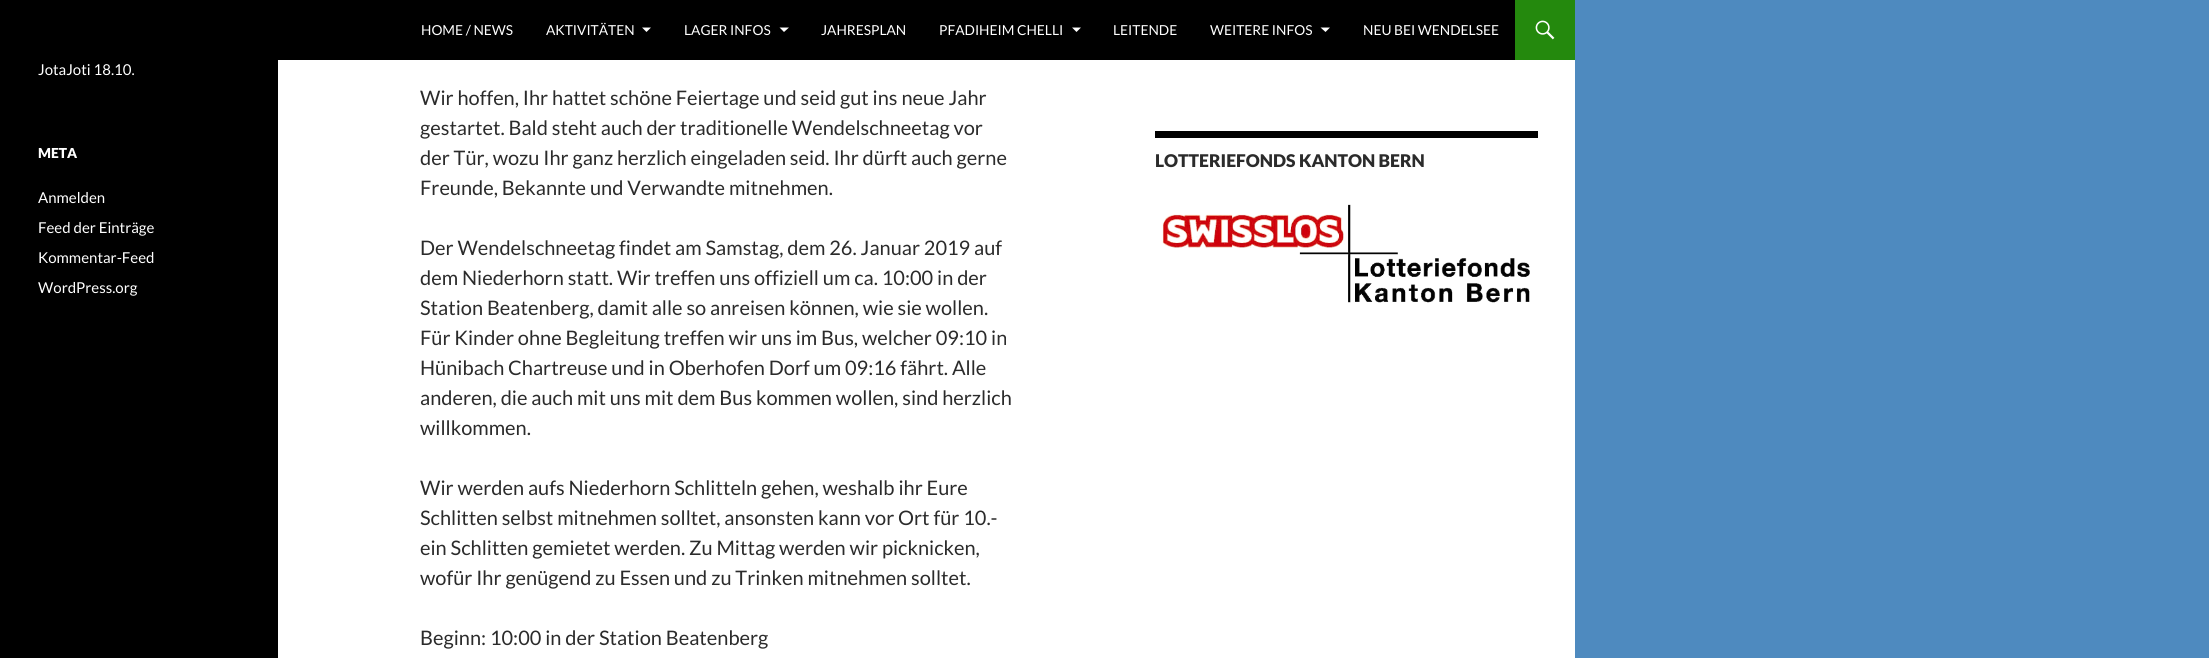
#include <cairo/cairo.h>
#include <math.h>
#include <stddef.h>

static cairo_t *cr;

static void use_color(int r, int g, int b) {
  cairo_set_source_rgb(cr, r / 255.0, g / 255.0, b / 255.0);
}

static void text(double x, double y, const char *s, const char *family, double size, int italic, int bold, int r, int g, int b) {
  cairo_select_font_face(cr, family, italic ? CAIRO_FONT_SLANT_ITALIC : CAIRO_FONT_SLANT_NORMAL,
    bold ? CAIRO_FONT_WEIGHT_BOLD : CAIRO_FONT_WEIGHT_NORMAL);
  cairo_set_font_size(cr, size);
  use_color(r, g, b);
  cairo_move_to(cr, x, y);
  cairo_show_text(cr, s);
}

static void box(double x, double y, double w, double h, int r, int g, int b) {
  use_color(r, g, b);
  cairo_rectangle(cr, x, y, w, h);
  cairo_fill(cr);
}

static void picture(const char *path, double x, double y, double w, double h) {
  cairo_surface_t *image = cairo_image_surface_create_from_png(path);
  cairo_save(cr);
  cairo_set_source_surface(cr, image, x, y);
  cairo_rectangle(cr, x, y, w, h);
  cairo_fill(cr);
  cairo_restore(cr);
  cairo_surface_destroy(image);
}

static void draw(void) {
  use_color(78, 138, 191);
  cairo_paint(cr);
  box(278, 60, 1297, 598, 255, 255, 255);
  box(0, 0, 1515, 60, 0, 0, 0);
  use_color(255, 255, 255);
  cairo_new_path(cr);
  cairo_move_to(cr, 642, 27.5);
  cairo_line_to(cr, 646.5, 32);
  cairo_line_to(cr, 651, 27.5);
  cairo_close_path(cr);
  cairo_fill(cr);
  cairo_new_path(cr);
  cairo_move_to(cr, 779.5, 27.5);
  cairo_line_to(cr, 784, 32);
  cairo_line_to(cr, 789, 27.5);
  cairo_close_path(cr);
  cairo_fill(cr);
  cairo_new_path(cr);
  cairo_move_to(cr, 1072, 27.5);
  cairo_line_to(cr, 1076.5, 32);
  cairo_line_to(cr, 1081, 27.5);
  cairo_close_path(cr);
  cairo_fill(cr);
  cairo_new_path(cr);
  cairo_move_to(cr, 1320.5, 27.5);
  cairo_line_to(cr, 1325.5, 32);
  cairo_line_to(cr, 1330, 27.5);
  cairo_close_path(cr);
  cairo_fill(cr);
  box(1515, 0, 60, 60, 36, 137, 13);
  picture("img_01.png", 1535, 20, 20, 20);
  box(0, 60, 278, 598, 0, 0, 0);
  box(1155, 131, 383, 7, 0, 0, 0);
  picture("img_02.png", 1162, 204, 368, 99);
  text(421, 35, "HOME / NEWS", "Lato", 13.75, 0, 0, 255, 255, 255);
  text(546, 35, "AKTIVITÄTEN", "Lato", 13.75, 0, 0, 255, 255, 255);
  text(684, 35, "LAGER INFOS", "Lato", 13.75, 0, 0, 255, 255, 255);
  text(821, 35, "JAHRESPLAN", "Lato", 13.75, 0, 0, 255, 255, 255);
  text(939, 35, "PFADIHEIM CHELLI", "Lato", 13.75, 0, 0, 255, 255, 255);
  text(1113, 35, "LEITENDE", "Lato", 13.75, 0, 0, 255, 255, 255);
  text(1210, 35, "WEITERE INFOS", "Lato", 13.75, 0, 0, 255, 255, 255);
  text(1363, 35, "NEU BEI WENDELSEE", "Lato", 13.75, 0, 0, 255, 255, 255);
  text(38, 75, "JotaJoti 18.10.", "Lato", 15, 0, 0, 255, 255, 255);
  text(38, 158, "META", "Lato Black", 13.75, 0, 0, 255, 255, 255);
  text(38, 203, "Anmelden", "Lato", 15, 0, 0, 255, 255, 255);
  text(38, 233, "Feed der Einträge", "Lato", 15, 0, 0, 255, 255, 255);
  text(38, 263, "Kommentar-Feed", "Lato", 15, 0, 0, 255, 255, 255);
  text(38, 293, "WordPress.org", "Lato", 15, 0, 0, 255, 255, 255);
  text(420, 105, "Wir hoffen, Ihr hattet schöne Feiertage und seid gut ins neue Jahr", "Lato", 20, 0, 0, 43, 43, 43);
  text(420, 135, "gestartet. Bald steht auch der traditionelle Wendelschneetag vor", "Lato", 20, 0, 0, 43, 43, 43);
  text(420, 165, "der Tür, wozu Ihr ganz herzlich eingeladen seid. Ihr dürft auch gerne", "Lato", 20, 0, 0, 43, 43, 43);
  text(420, 195, "Freunde, Bekannte und Verwandte mitnehmen.", "Lato", 20, 0, 0, 43, 43, 43);
  text(420, 255, "Der Wendelschneetag findet am Samstag, dem 26. Januar 2019 auf", "Lato", 20, 0, 0, 43, 43, 43);
  text(420, 285, "dem Niederhorn statt. Wir treffen uns offiziell um ca. 10:00 in der", "Lato", 20, 0, 0, 43, 43, 43);
  text(420, 315, "Station Beatenberg, damit alle so anreisen können, wie sie wollen.", "Lato", 20, 0, 0, 43, 43, 43);
  text(420, 345, "Für Kinder ohne Begleitung treffen wir uns im Bus, welcher 09:10 in", "Lato", 20, 0, 0, 43, 43, 43);
  text(420, 375, "Hünibach Chartreuse und in Oberhofen Dorf um 09:16 fährt. Alle", "Lato", 20, 0, 0, 43, 43, 43);
  text(420, 405, "anderen, die auch mit uns mit dem Bus kommen wollen, sind herzlich", "Lato", 20, 0, 0, 43, 43, 43);
  text(420, 435, "willkommen.", "Lato", 20, 0, 0, 43, 43, 43);
  text(420, 495, "Wir werden aufs Niederhorn Schlitteln gehen, weshalb ihr Eure", "Lato", 20, 0, 0, 43, 43, 43);
  text(420, 525, "Schlitten selbst mitnehmen solltet, ansonsten kann vor Ort für 10.-", "Lato", 20, 0, 0, 43, 43, 43);
  text(420, 555, "ein Schlitten gemietet werden. Zu Mittag werden wir picknicken,", "Lato", 20, 0, 0, 43, 43, 43);
  text(420, 585, "wofür Ihr genügend zu Essen und zu Trinken mitnehmen solltet.", "Lato", 20, 0, 0, 43, 43, 43);
  text(420, 645, "Beginn: 10:00 in der Station Beatenberg", "Lato", 20, 0, 0, 43, 43, 43);
  text(1155, 167, "LOTTERIEFONDS KANTON BERN", "Lato Black", 17.5, 0, 0, 43, 43, 43);
}

int main(void) {
  cairo_surface_t *surface = cairo_image_surface_create(CAIRO_FORMAT_RGB24, 2209, 658);
  cr = cairo_create(surface);
  cairo_font_options_t *options = cairo_font_options_create();
  cairo_font_options_set_hint_metrics(options, CAIRO_HINT_METRICS_OFF);
  cairo_font_options_set_hint_style(options, CAIRO_HINT_STYLE_NONE);
  cairo_set_font_options(cr, options);
  cairo_set_miter_limit(cr, 4);
  draw();
  cairo_surface_write_to_png(surface, "out.png");
  cairo_font_options_destroy(options);
  cairo_destroy(cr);
  cairo_surface_destroy(surface);
  return 0;
}
